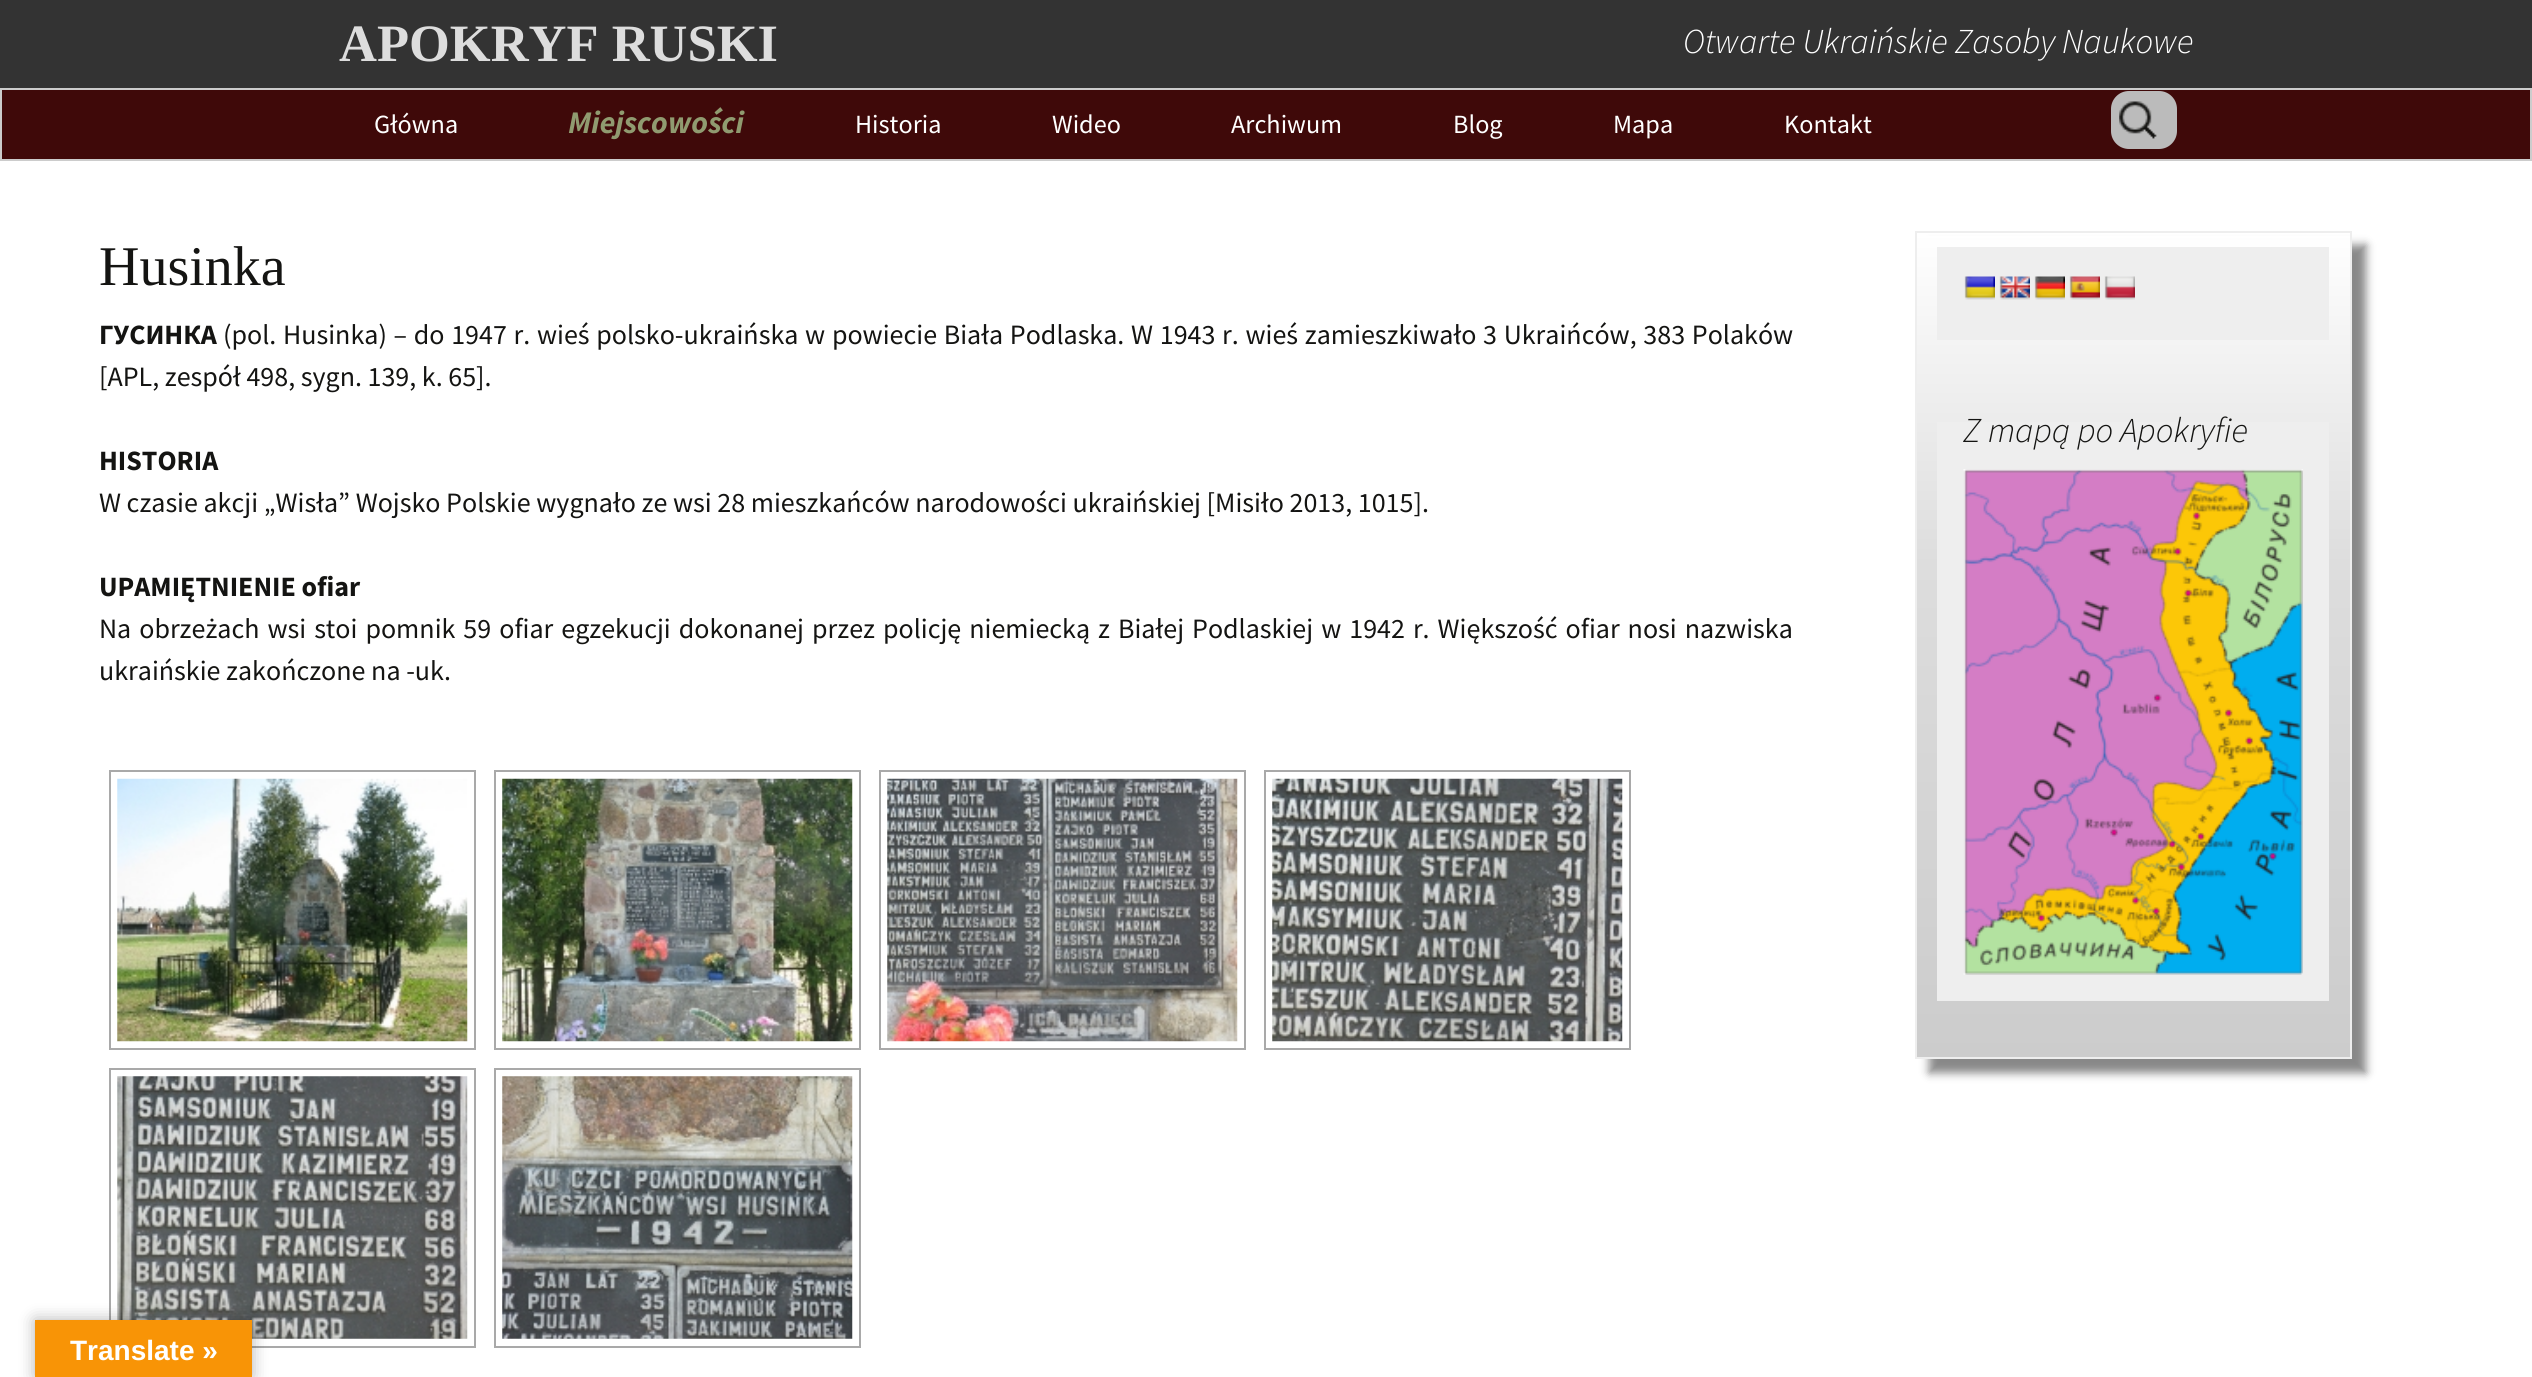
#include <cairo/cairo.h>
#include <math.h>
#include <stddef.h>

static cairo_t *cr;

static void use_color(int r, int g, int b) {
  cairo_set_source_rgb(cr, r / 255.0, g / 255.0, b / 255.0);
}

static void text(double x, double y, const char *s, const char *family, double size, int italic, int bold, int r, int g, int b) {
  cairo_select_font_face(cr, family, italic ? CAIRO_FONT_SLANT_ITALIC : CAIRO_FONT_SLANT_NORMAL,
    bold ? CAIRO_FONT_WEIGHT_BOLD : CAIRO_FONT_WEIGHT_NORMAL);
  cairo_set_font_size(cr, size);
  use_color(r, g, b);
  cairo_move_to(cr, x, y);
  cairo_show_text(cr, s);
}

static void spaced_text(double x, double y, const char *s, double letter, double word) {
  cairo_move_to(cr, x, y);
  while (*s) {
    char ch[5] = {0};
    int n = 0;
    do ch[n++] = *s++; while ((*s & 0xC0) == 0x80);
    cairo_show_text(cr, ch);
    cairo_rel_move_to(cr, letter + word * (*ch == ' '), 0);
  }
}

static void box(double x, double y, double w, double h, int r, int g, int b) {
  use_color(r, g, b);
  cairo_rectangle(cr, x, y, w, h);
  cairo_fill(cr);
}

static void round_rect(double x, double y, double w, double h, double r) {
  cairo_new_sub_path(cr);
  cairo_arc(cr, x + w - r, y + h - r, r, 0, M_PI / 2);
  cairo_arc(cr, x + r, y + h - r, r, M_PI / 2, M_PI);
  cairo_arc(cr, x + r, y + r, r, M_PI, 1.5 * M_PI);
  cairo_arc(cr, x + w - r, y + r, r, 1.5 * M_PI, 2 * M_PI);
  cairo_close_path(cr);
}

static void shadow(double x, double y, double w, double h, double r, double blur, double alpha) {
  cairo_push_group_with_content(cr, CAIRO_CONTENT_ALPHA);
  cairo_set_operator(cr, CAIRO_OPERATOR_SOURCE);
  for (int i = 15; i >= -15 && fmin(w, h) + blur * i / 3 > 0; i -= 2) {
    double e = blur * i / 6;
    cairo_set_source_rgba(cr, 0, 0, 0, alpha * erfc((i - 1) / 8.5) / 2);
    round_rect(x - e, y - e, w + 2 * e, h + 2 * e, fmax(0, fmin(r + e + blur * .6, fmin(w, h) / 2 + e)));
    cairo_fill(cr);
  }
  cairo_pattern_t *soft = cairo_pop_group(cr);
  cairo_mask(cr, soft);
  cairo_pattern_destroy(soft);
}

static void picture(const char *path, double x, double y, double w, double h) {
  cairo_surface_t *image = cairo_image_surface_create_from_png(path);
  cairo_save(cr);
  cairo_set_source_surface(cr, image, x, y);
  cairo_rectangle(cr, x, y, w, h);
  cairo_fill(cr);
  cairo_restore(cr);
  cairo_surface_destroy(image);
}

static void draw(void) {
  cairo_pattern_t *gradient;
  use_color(255, 255, 255);
  cairo_paint(cr);
  box(0, 0, 2532, 88, 51, 51, 51);
  use_color(63, 9, 9);
  cairo_rectangle(cr, 1, 89, 2530, 71);
  cairo_fill_preserve(cr);
  use_color(204, 204, 204);
  cairo_stroke(cr);
  use_color(187, 187, 187);
  round_rect(2111, 91, 66, 58, 18);
  cairo_fill(cr);
  picture("img_01.png", 2119, 101, 38, 38);
  cairo_rectangle(cr, 110, 771, 365, 278);
  use_color(169, 169, 169);
  cairo_stroke(cr);
  picture("img_02.png", 117, 778, 351, 264);
  cairo_rectangle(cr, 495, 771, 365, 278);
  cairo_stroke(cr);
  picture("img_03.png", 502, 778, 351, 264);
  cairo_rectangle(cr, 880, 771, 365, 278);
  cairo_stroke(cr);
  picture("img_04.png", 887, 778, 351, 264);
  cairo_rectangle(cr, 1265, 771, 365, 278);
  cairo_stroke(cr);
  picture("img_05.png", 1272, 778, 351, 264);
  cairo_rectangle(cr, 110, 1069, 365, 278);
  cairo_stroke(cr);
  picture("img_06.png", 117, 1076, 351, 263);
  cairo_rectangle(cr, 495, 1069, 365, 278);
  cairo_stroke(cr);
  picture("img_07.png", 502, 1076, 351, 263);
  use_color(136, 136, 136);
  shadow(1929, 245, 437, 828, 0, 4.5, 1);
  gradient = cairo_pattern_create_linear(2133, 233, 2133, 1057);
  cairo_pattern_add_color_stop_rgba(gradient, 0, 1, 1, 1, 1);
  cairo_pattern_add_color_stop_rgba(gradient, 0.4, 0.867, 0.867, 0.867, 1);
  cairo_pattern_add_color_stop_rgba(gradient, 1, 0.8, 0.8, 0.8, 1);
  cairo_set_source(cr, gradient);
  cairo_pattern_destroy(gradient);
  cairo_rectangle(cr, 1917, 236, 433, 821);
  cairo_fill(cr);
  cairo_rectangle(cr, 1916, 232, 435, 826);
  use_color(238, 238, 238);
  cairo_stroke(cr);
  box(1937, 247, 392, 93, 238, 238, 238);
  picture("img_08.png", 1964, 276, 31, 24);
  picture("img_09.png", 1999, 276, 31, 24);
  picture("img_10.png", 2034, 276, 31, 24);
  picture("img_11.png", 2069, 276, 31, 24);
  picture("img_12.png", 2104, 276, 31, 24);
  box(1937, 422, 392, 579, 238, 238, 238);
  picture("img_13.png", 1963, 469, 340, 506);
  use_color(0, 0, 0);
  shadow(35, 1320, 217, 57, 0, 8, 0.3);
  box(35, 1320, 217, 57, 248, 148, 6);
  text(339, 61, "APOKRYF RUSKI", "Liberation Serif", 52.5, 0, 1, 221, 221, 221);
  text(1683, 53, "Otwarte Ukraińskie Zasoby Naukowe", "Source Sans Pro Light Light", 35, 1, 0, 255, 255, 255);
  text(374, 133, "Główna", "Source Sans Pro", 26.25, 0, 0, 255, 255, 255);
  text(568, 133, "Miejscowości", "Source Sans Pro", 31.5, 1, 1, 144, 155, 112);
  text(855, 133, "Historia", "Source Sans Pro", 26.25, 0, 0, 255, 255, 255);
  text(1052, 133, "Wideo", "Source Sans Pro", 26.25, 0, 0, 255, 255, 255);
  text(1231, 133, "Archiwum", "Source Sans Pro", 26.25, 0, 0, 255, 255, 255);
  text(1453, 133, "Blog", "Source Sans Pro", 26.25, 0, 0, 255, 255, 255);
  text(1613, 133, "Mapa", "Source Sans Pro", 26.25, 0, 0, 255, 255, 255);
  text(1784, 133, "Kontakt", "Source Sans Pro", 26.25, 0, 0, 255, 255, 255);
  text(99, 285, "Husinka", "Liberation Serif", 56, 0, 0, 20, 20, 18);
  text(99, 344, "ГУСИНКА", "Source Sans Pro", 28, 0, 1, 20, 20, 18);
  cairo_select_font_face(cr, "Source Sans Pro", CAIRO_FONT_SLANT_NORMAL, CAIRO_FONT_WEIGHT_NORMAL);
  spaced_text(223, 344, "(pol. Husinka) – do 1947 r. wieś polsko-ukraińska w powiecie Biała Podlaska. W 1943 r. wieś zamieszkiwało 3 Ukraińców, 383 Polaków", 0, 1.1);
  text(99, 386, "[APL, zespół 498, sygn. 139, k. 65].", "Source Sans Pro", 28, 0, 0, 20, 20, 18);
  text(99, 470, "HISTORIA", "Source Sans Pro", 28, 0, 1, 20, 20, 18);
  text(99, 512, "W czasie akcji „Wisła” Wojsko Polskie wygnało ze wsi 28 mieszkańców narodowości ukraińskiej [Misiło 2013, 1015].", "Source Sans Pro", 28, 0, 0, 20, 20, 18);
  text(99, 596, "UPAMIĘTNIENIE ofiar", "Source Sans Pro", 28, 0, 1, 20, 20, 18);
  cairo_select_font_face(cr, "Source Sans Pro", CAIRO_FONT_SLANT_NORMAL, CAIRO_FONT_WEIGHT_NORMAL);
  spaced_text(99, 638, "Na obrzeżach wsi stoi pomnik 59 ofiar egzekucji dokonanej przez policję niemiecką z Białej Podlaskiej w 1942 r. Większość ofiar nosi nazwiska", 0, 2.4);
  text(99, 680, "ukraińskie zakończone na -uk.", "Source Sans Pro", 28, 0, 0, 20, 20, 18);
  text(1963, 442, "Z mapą po Apokryfie", "Source Sans Pro Light Light", 35, 1, 0, 20, 20, 18);
  text(70, 1360, "Translate »", "Liberation Sans", 28, 0, 1, 255, 255, 255);
}

int main(void) {
  cairo_surface_t *surface = cairo_image_surface_create(CAIRO_FORMAT_RGB24, 2532, 1377);
  cr = cairo_create(surface);
  cairo_font_options_t *options = cairo_font_options_create();
  cairo_font_options_set_hint_metrics(options, CAIRO_HINT_METRICS_OFF);
  cairo_font_options_set_hint_style(options, CAIRO_HINT_STYLE_NONE);
  cairo_set_font_options(cr, options);
  cairo_set_miter_limit(cr, 4);
  draw();
  cairo_surface_write_to_png(surface, "out.png");
  cairo_font_options_destroy(options);
  cairo_destroy(cr);
  cairo_surface_destroy(surface);
  return 0;
}
